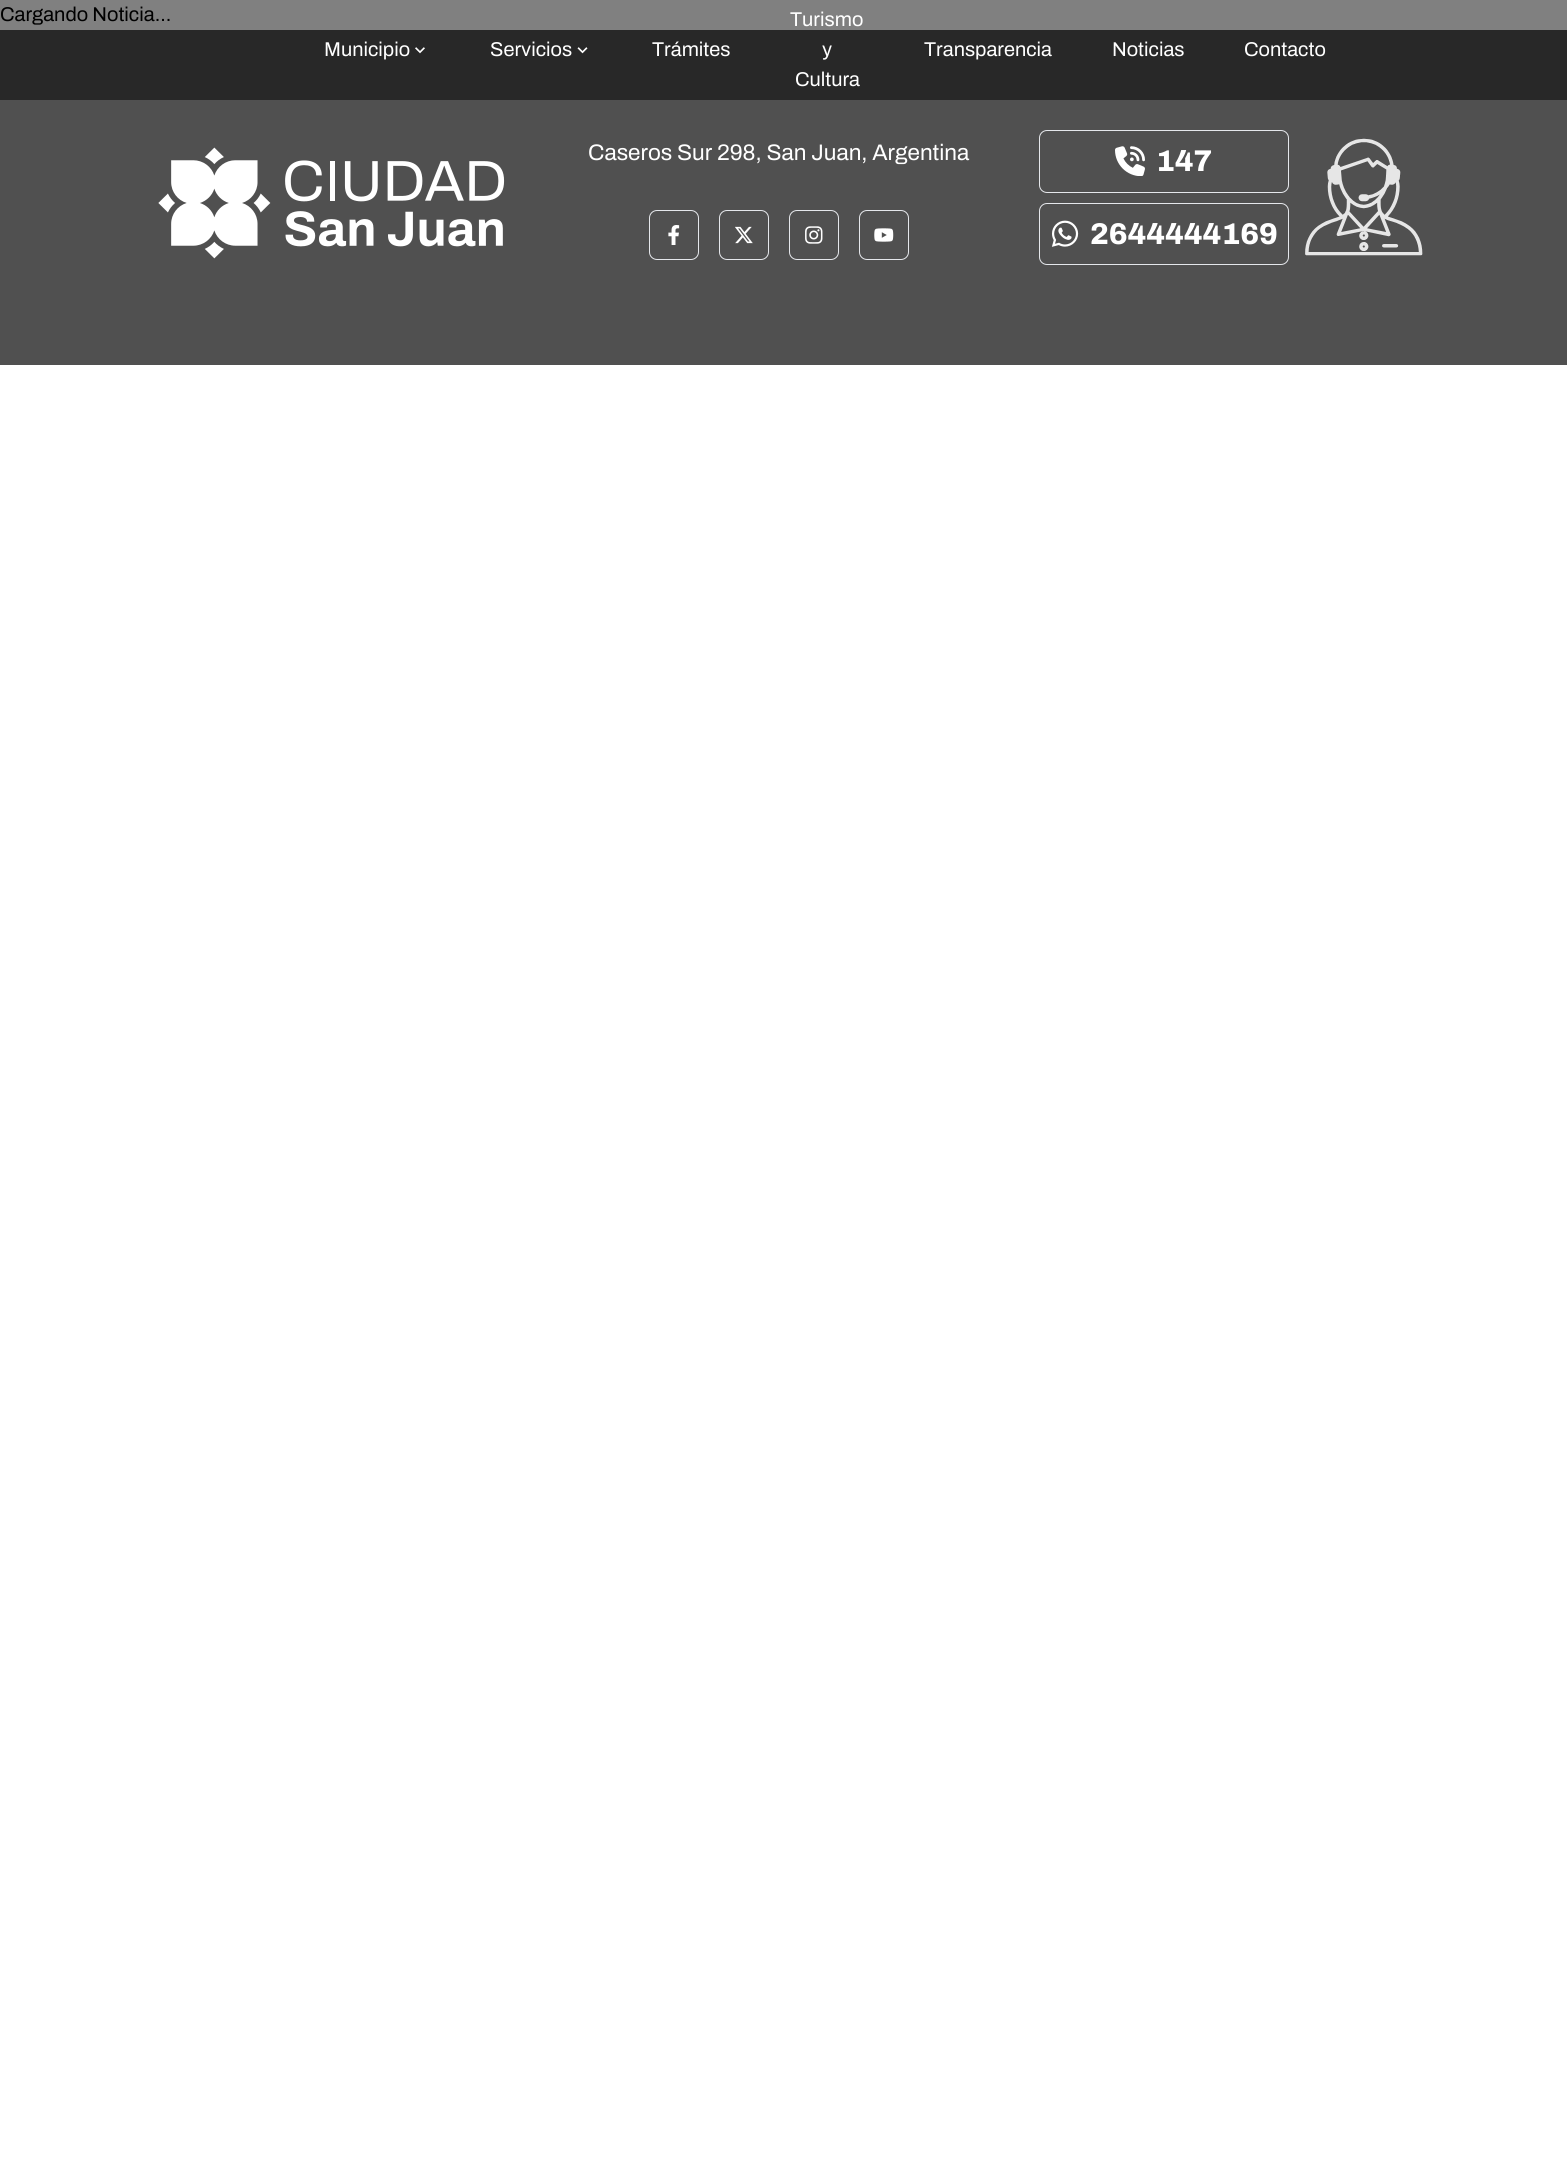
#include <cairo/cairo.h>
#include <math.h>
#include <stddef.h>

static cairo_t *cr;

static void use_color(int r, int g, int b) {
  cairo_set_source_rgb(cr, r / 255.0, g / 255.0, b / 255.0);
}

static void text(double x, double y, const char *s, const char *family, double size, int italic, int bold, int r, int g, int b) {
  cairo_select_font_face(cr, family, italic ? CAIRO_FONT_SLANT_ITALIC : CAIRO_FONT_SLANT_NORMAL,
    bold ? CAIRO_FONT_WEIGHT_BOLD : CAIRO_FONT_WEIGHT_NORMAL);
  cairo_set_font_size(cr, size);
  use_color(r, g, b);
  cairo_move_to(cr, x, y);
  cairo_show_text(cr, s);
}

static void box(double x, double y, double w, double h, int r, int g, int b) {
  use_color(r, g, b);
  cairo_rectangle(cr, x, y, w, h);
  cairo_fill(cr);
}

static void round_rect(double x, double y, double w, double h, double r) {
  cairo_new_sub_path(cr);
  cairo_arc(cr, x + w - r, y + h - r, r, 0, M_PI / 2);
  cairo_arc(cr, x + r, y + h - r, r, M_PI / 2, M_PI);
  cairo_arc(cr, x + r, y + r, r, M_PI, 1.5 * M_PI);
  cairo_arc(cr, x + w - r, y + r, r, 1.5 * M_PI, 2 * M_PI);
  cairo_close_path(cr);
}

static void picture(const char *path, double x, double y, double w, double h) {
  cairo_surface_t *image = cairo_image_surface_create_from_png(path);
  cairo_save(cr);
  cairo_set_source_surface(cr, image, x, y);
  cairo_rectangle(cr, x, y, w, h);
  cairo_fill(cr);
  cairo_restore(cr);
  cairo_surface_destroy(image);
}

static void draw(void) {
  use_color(255, 255, 255);
  cairo_paint(cr);
  box(0, 0, 1567, 30, 128, 128, 128);
  box(0, 30, 1567, 70, 40, 40, 40);
  picture("img_01.png", 415, 47, 10, 7);
  picture("img_02.png", 577, 47, 11, 7);
  box(0, 100, 1567, 265, 80, 80, 80);
  picture("img_03.png", 158, 147, 347, 112);
  round_rect(649.5, 210.5, 49, 49, 7.5);
  use_color(229, 231, 235);
  cairo_set_line_width(cr, 1);
  cairo_stroke(cr);
  picture("img_04.png", 668, 225, 12, 20);
  round_rect(719.5, 210.5, 49, 49, 7.5);
  cairo_stroke(cr);
  picture("img_05.png", 735, 226, 18, 18);
  round_rect(789.5, 210.5, 49, 49, 7.5);
  cairo_stroke(cr);
  picture("img_06.png", 805, 226, 18, 18);
  round_rect(859.5, 210.5, 49, 49, 7.5);
  cairo_stroke(cr);
  picture("img_07.png", 874, 228, 20, 14);
  round_rect(1039.5, 130.5, 249, 62, 7.5);
  cairo_stroke(cr);
  picture("img_08.png", 1115, 146, 30, 30);
  round_rect(1039.5, 203.5, 249, 61, 7.5);
  cairo_stroke(cr);
  picture("img_09.png", 1051, 220, 28, 27);
  picture("img_10.png", 1305, 138, 118, 118);
  text(0, 21, "Cargando Noticia...", "Archivo", 20, 0, 0, 0, 0, 0);
  text(324, 56, "Municipio", "Archivo", 20, 0, 0, 255, 255, 255);
  text(490, 56, "Servicios", "Archivo", 20, 0, 0, 255, 255, 255);
  text(652, 56, "Trámites", "Archivo", 20, 0, 0, 255, 255, 255);
  text(790, 26, "Turismo", "Archivo", 20, 0, 0, 255, 255, 255);
  text(822, 56, "y", "Archivo", 20, 0, 0, 255, 255, 255);
  text(795, 86, "Cultura", "Archivo", 20, 0, 0, 255, 255, 255);
  text(924, 56, "Transparencia", "Archivo", 20, 0, 0, 255, 255, 255);
  text(1112, 56, "Noticias", "Archivo", 20, 0, 0, 255, 255, 255);
  text(1244, 56, "Contacto", "Archivo", 20, 0, 0, 255, 255, 255);
  text(588, 160, "Caseros Sur 298, San Juan, Argentina", "Archivo", 22.5, 0, 0, 255, 255, 255);
  text(1156, 171, "147", "Archivo ExtraBold", 30, 0, 0, 255, 255, 255);
  text(1090, 244, "2644444169", "Archivo ExtraBold", 30, 0, 0, 255, 255, 255);
}

int main(void) {
  cairo_surface_t *surface = cairo_image_surface_create(CAIRO_FORMAT_RGB24, 1567, 2177);
  cr = cairo_create(surface);
  cairo_font_options_t *options = cairo_font_options_create();
  cairo_font_options_set_hint_metrics(options, CAIRO_HINT_METRICS_OFF);
  cairo_font_options_set_hint_style(options, CAIRO_HINT_STYLE_NONE);
  cairo_set_font_options(cr, options);
  cairo_set_miter_limit(cr, 4);
  draw();
  cairo_surface_write_to_png(surface, "out.png");
  cairo_font_options_destroy(options);
  cairo_destroy(cr);
  cairo_surface_destroy(surface);
  return 0;
}
